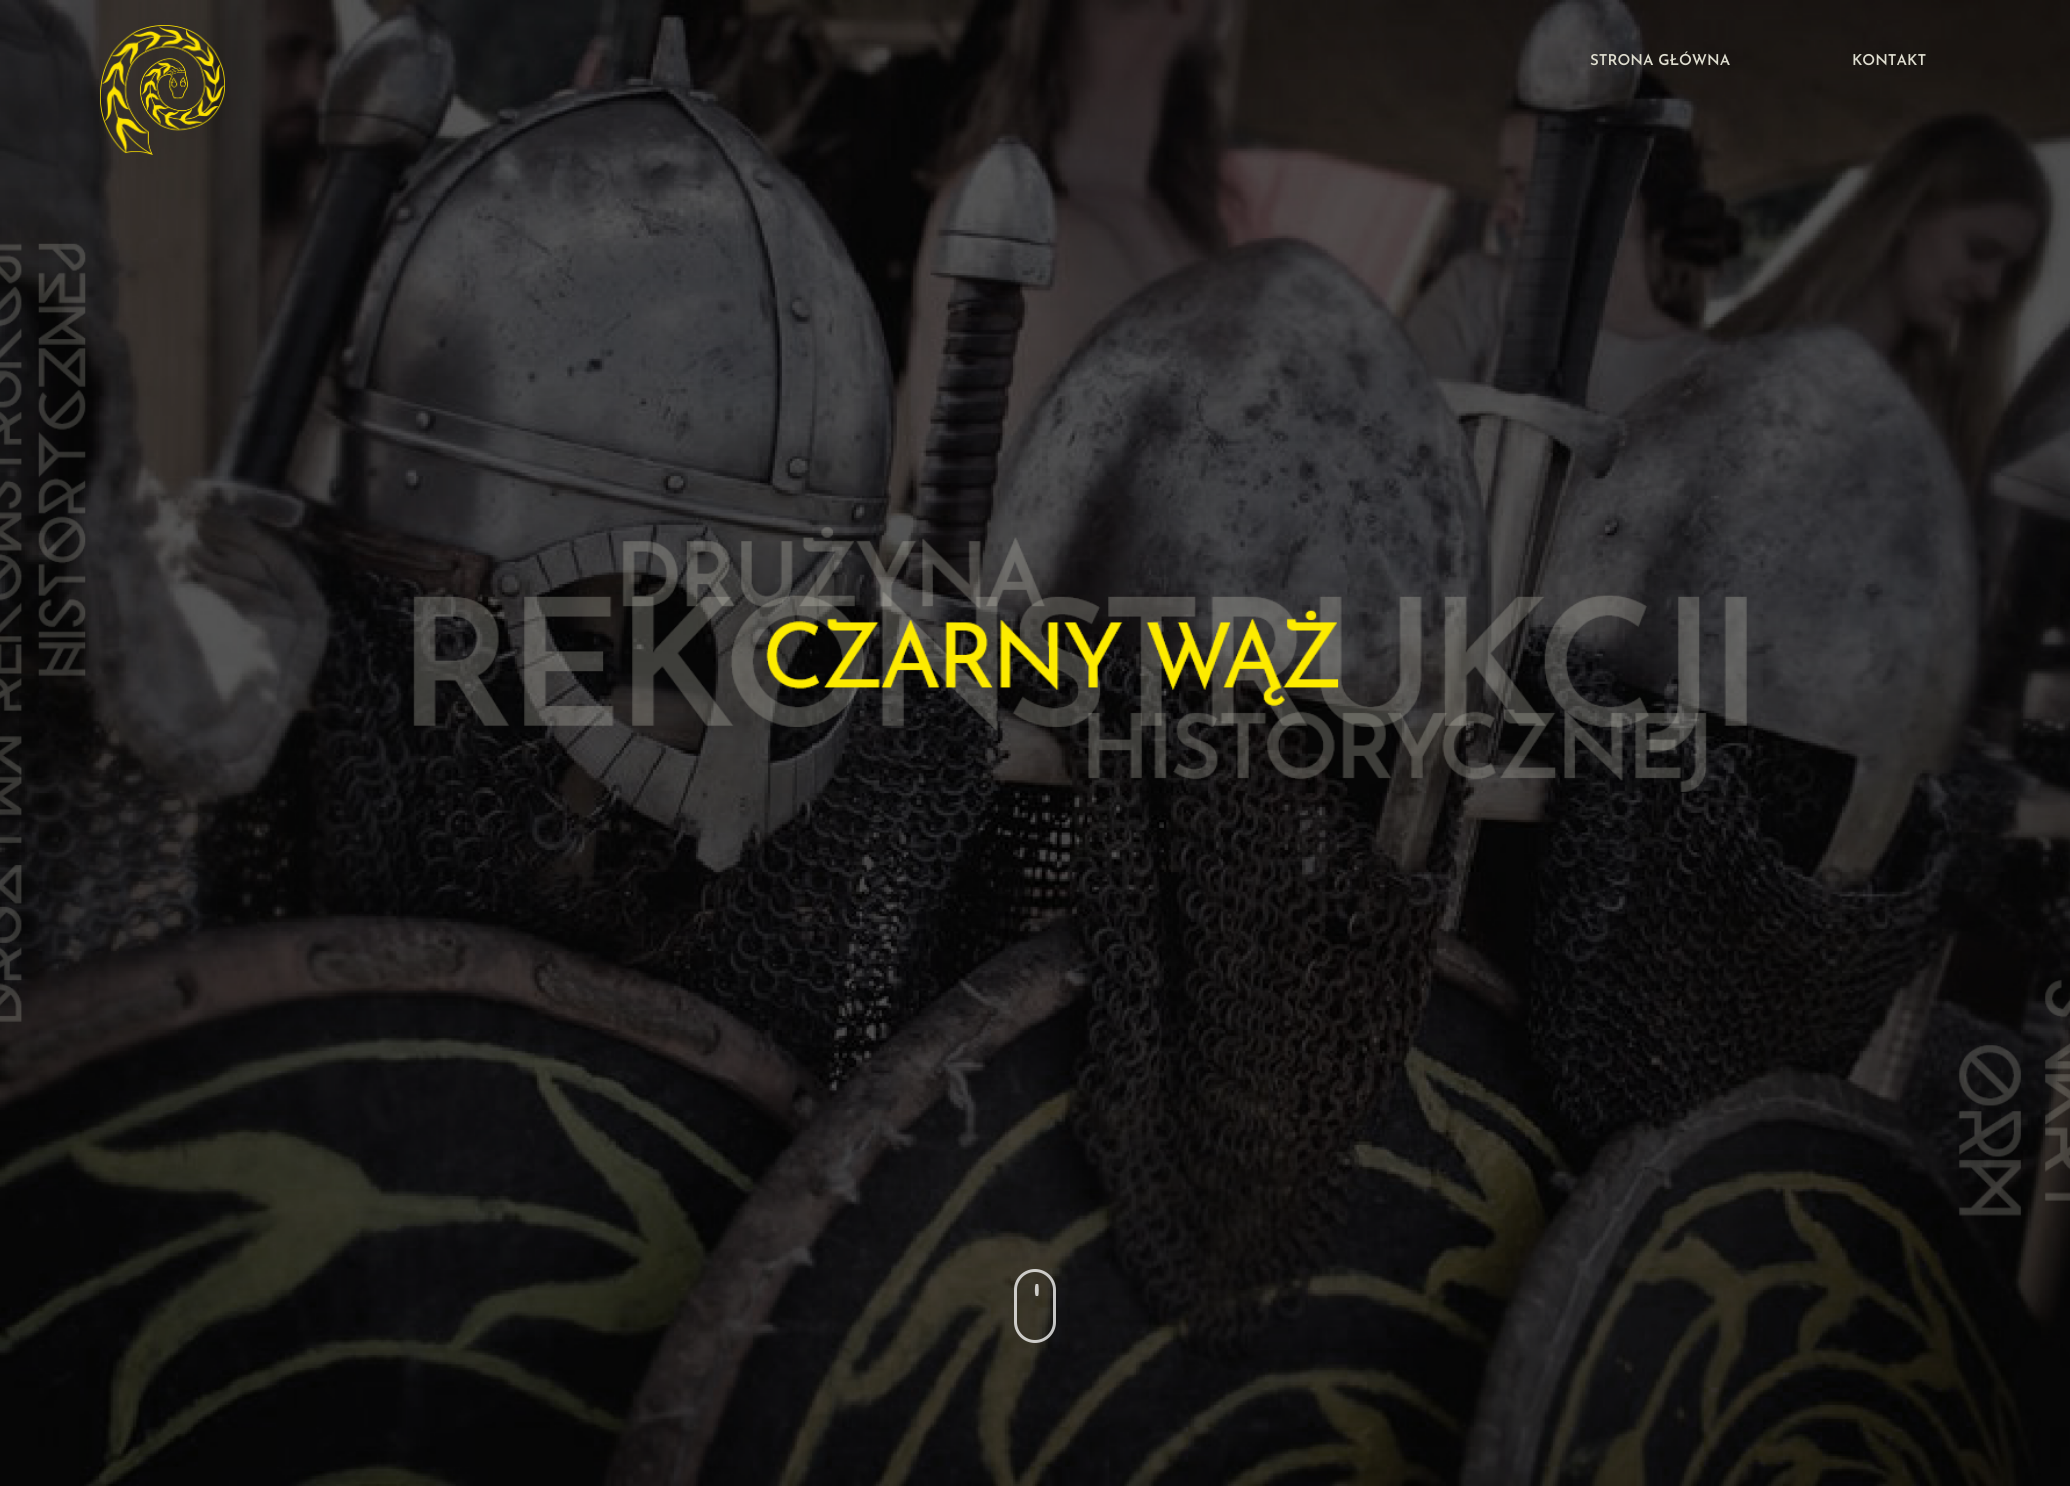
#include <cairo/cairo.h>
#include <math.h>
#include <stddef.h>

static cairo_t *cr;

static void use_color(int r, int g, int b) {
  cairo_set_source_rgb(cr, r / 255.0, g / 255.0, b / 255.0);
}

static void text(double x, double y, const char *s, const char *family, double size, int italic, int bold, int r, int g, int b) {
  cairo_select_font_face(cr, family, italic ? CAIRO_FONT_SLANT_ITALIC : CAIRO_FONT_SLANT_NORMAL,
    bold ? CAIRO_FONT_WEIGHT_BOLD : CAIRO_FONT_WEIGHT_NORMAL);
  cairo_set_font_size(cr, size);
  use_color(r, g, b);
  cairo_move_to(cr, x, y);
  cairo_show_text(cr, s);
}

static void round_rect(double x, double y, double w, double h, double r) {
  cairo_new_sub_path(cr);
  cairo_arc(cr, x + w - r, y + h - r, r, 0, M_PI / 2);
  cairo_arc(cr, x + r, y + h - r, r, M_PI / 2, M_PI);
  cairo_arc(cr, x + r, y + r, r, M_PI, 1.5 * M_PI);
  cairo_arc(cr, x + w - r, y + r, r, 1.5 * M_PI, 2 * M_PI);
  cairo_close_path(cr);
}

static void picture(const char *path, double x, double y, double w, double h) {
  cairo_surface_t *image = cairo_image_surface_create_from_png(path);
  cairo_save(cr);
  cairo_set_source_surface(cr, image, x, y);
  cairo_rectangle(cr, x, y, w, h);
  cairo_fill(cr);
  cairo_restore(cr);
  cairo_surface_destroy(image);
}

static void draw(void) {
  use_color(0, 0, 0);
  cairo_paint(cr);
  picture("img_01.png", 0, 0, 2070, 1486);
  round_rect(1015.5, 1270.5, 39, 71, 19.5);
  cairo_set_source_rgba(cr, 1, 1, 1, 0.75);
  cairo_set_line_width(cr, 3);
  cairo_stroke(cr);
  cairo_new_path(cr);
  cairo_move_to(cr, 1036, 1284);
  cairo_line_to(cr, 1038, 1284);
  cairo_curve_to(cr, 1039, 1284.5, 1039, 1295.5, 1038, 1296);
  cairo_line_to(cr, 1036, 1296);
  cairo_curve_to(cr, 1034.5, 1296, 1034.5, 1284, 1036, 1284);
  cairo_close_path(cr);
  cairo_fill(cr);
  picture("img_02.png", 100, 25, 125, 130);
  text(1590, 65, "STRONA GŁÓWNA", "Josefin Sans SemiBold", 15, 0, 0, 222, 221, 207);
  text(1852, 65, "KONTAKT", "Josefin Sans SemiBold", 15, 0, 0, 222, 221, 207);
}

int main(void) {
  cairo_surface_t *surface = cairo_image_surface_create(CAIRO_FORMAT_RGB24, 2070, 1486);
  cr = cairo_create(surface);
  cairo_font_options_t *options = cairo_font_options_create();
  cairo_font_options_set_hint_metrics(options, CAIRO_HINT_METRICS_OFF);
  cairo_font_options_set_hint_style(options, CAIRO_HINT_STYLE_NONE);
  cairo_set_font_options(cr, options);
  cairo_set_miter_limit(cr, 4);
  draw();
  cairo_surface_write_to_png(surface, "out.png");
  cairo_font_options_destroy(options);
  cairo_destroy(cr);
  cairo_surface_destroy(surface);
  return 0;
}
